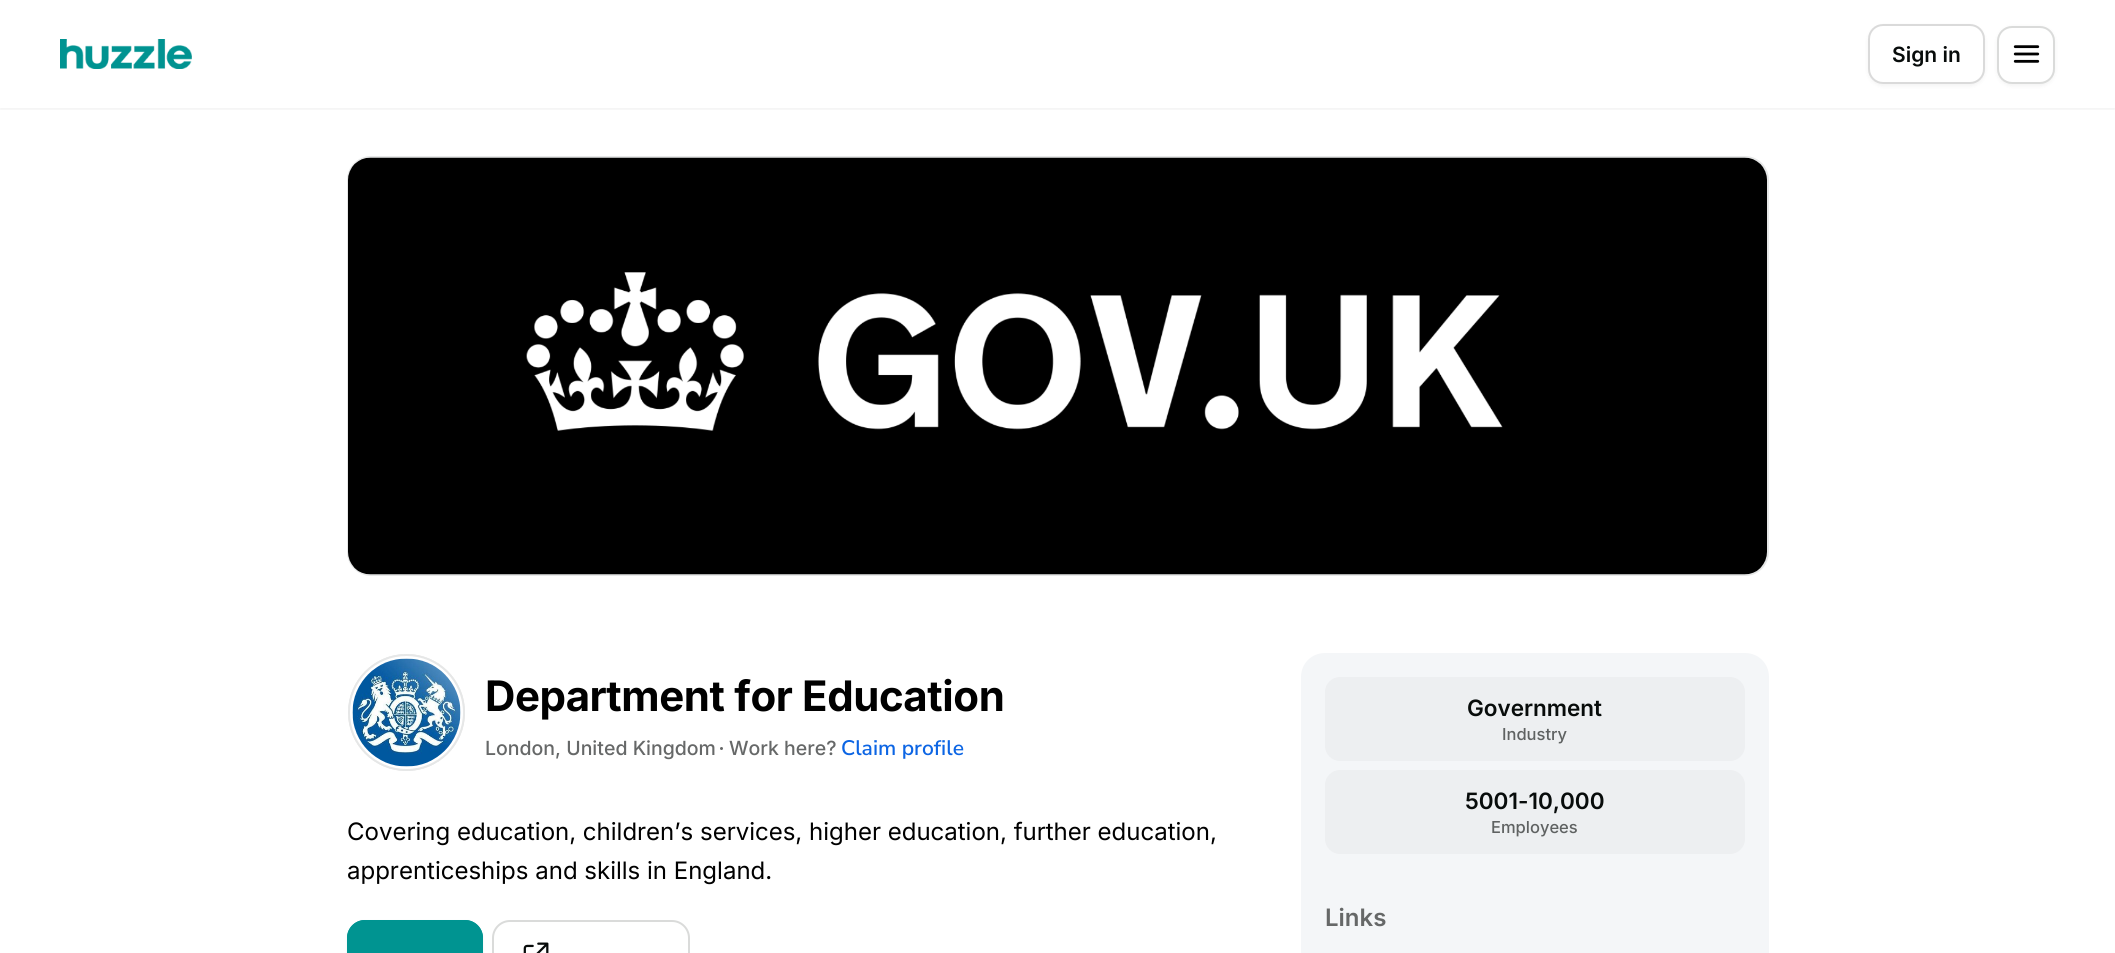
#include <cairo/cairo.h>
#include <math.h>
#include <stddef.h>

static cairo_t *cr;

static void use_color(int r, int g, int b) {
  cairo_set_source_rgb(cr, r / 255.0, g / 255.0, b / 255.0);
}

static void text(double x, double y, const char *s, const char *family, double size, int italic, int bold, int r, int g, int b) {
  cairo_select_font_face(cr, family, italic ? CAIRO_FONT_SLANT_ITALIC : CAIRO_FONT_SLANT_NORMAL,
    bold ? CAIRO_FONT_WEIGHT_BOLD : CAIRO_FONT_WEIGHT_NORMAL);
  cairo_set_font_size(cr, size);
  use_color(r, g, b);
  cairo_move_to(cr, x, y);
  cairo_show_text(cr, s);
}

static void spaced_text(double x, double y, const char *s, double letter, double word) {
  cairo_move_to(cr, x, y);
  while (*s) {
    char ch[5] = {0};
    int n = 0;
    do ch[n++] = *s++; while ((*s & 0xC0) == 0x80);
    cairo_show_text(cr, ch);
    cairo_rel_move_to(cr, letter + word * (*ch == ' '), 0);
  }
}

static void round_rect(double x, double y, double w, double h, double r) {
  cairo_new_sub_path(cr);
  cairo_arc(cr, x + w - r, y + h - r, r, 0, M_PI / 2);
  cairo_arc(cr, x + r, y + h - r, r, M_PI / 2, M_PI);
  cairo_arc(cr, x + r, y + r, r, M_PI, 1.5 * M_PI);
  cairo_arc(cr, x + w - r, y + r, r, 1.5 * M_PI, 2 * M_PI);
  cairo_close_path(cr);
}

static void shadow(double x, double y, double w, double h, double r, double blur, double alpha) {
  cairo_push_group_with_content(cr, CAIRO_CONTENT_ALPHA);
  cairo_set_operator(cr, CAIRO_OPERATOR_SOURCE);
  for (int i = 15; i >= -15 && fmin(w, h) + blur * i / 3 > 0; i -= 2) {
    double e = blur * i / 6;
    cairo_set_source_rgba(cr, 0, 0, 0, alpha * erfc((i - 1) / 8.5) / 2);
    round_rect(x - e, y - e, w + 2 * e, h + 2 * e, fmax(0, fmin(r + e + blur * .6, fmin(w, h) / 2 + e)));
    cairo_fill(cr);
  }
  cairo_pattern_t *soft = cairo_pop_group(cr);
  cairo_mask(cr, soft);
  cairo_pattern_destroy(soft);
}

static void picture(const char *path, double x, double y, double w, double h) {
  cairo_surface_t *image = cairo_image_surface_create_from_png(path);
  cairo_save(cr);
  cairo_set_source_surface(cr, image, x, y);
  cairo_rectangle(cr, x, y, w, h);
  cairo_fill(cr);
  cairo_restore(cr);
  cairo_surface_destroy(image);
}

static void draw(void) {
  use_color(255, 255, 255);
  cairo_paint(cr);
  cairo_save(cr);
  cairo_rectangle(cr, 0, 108, 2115, 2);
  cairo_clip(cr);
  use_color(0, 0, 0);
  shadow(0, 2, 2115, 108, 0, 1.5, 0.05);
  cairo_restore(cr);
  picture("img_01.png", 60, 39, 132, 30);
  use_color(8, 12, 11);
  shadow(1868, 26, 117, 60, 15, 2, 0.05);
  use_color(255, 255, 255);
  round_rect(1868, 24, 117, 60, 15);
  cairo_fill(cr);
  round_rect(1869, 25, 115, 58, 14);
  cairo_set_source_rgba(cr, 0.031, 0.047, 0.043, 0.15);
  cairo_stroke(cr);
  use_color(8, 12, 11);
  shadow(1997, 27, 58, 59, 15, 2, 0.05);
  use_color(255, 255, 255);
  round_rect(1998, 27, 56, 56, 14);
  cairo_fill_preserve(cr);
  use_color(218, 219, 218);
  cairo_stroke(cr);
  picture("img_02.png", 2013, 45, 27, 18);
  round_rect(348, 157, 1420, 418, 23);
  use_color(230, 231, 231);
  cairo_stroke(cr);
  picture("img_03.png", 348, 157, 1419, 418);
  cairo_arc(cr, 406.5, 712.5, 57.5, 0, 2 * M_PI);
  cairo_set_source_rgba(cr, 0.031, 0.047, 0.043, 0.1);
  cairo_stroke(cr);
  use_color(255, 255, 255);
  cairo_arc(cr, 406.5, 712.5, 58.5, 0, 2 * M_PI);
  cairo_fill(cr);
  cairo_arc(cr, 406.5, 712.5, 57.5, 0, 2 * M_PI);
  cairo_set_source_rgba(cr, 0.031, 0.047, 0.043, 0.1);
  cairo_stroke(cr);
  picture("img_04.png", 352, 658, 109, 109);
  use_color(102, 104, 104);
  cairo_arc(cr, 721.5, 748.5, 1.5, 0, 2 * M_PI);
  cairo_fill(cr);
  use_color(1, 67, 66);
  shadow(347, 921, 136, 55, 18, 1.5, 0.06);
  use_color(0, 148, 145);
  cairo_new_path(cr);
  cairo_move_to(cr, 365, 920);
  cairo_line_to(cr, 465, 920);
  cairo_curve_to(cr, 475, 920, 483, 928, 483, 938);
  cairo_line_to(cr, 483, 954);
  cairo_line_to(cr, 347, 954);
  cairo_line_to(cr, 347, 938);
  cairo_curve_to(cr, 347, 928, 355, 920, 365, 920);
  cairo_close_path(cr);
  cairo_fill(cr);
  round_rect(348, 921, 134, 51, 17);
  cairo_stroke(cr);
  round_rect(493, 921, 196, 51, 17);
  use_color(218, 219, 218);
  cairo_stroke(cr);
  picture("img_05.png", 523, 942, 26, 11);
  use_color(244, 246, 248);
  cairo_new_path(cr);
  cairo_move_to(cr, 1325, 653);
  cairo_line_to(cr, 1745, 653);
  cairo_curve_to(cr, 1758.5, 653, 1769, 663.5, 1769, 677);
  cairo_line_to(cr, 1769, 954);
  cairo_line_to(cr, 1301, 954);
  cairo_line_to(cr, 1301, 677);
  cairo_curve_to(cr, 1301, 663.5, 1311.5, 653, 1325, 653);
  cairo_close_path(cr);
  cairo_fill(cr);
  use_color(237, 239, 241);
  round_rect(1325, 677, 420, 84, 15);
  cairo_fill(cr);
  round_rect(1325, 770, 420, 84, 15);
  cairo_fill(cr);
  text(1892, 62, "Sign in", "Inter SemiBold", 21, 0, 0, 8, 12, 11);
  cairo_select_font_face(cr, "Inter", CAIRO_FONT_SLANT_NORMAL, CAIRO_FONT_WEIGHT_BOLD);
  cairo_set_font_size(cr, 42);
  use_color(0, 0, 0);
  spaced_text(485, 711, "Department for Education", -0.4, 0);
  text(485, 755, "London, United Kingdom", "Inter Medium", 19.5, 0, 0, 102, 104, 104);
  text(729, 755, "Work here?", "Inter Medium", 19.5, 0, 0, 102, 104, 104);
  text(841, 755, "Claim profile", "Nunito Sans SemiBold", 21, 0, 0, 12, 101, 228);
  text(347, 840, "Covering education, children’s services, higher education, further education,", "Inter", 24, 0, 0, 0, 0, 0);
  text(347, 879, "apprenticeships and skills in England.", "Inter", 24, 0, 0, 0, 0, 0);
  text(1467, 716, "Government", "Inter SemiBold", 22.5, 0, 0, 8, 12, 11);
  text(1502, 740, "Industry", "Inter Medium", 16.5, 0, 0, 95, 98, 98);
  text(1465, 809, "5001-10,000", "Inter SemiBold", 22.5, 0, 0, 8, 12, 11);
  text(1491, 833, "Employees", "Inter Medium", 16.5, 0, 0, 95, 98, 98);
  text(1325, 926, "Links", "Inter SemiBold", 24, 0, 0, 102, 104, 104);
}

int main(void) {
  cairo_surface_t *surface = cairo_image_surface_create(CAIRO_FORMAT_RGB24, 2115, 953);
  cr = cairo_create(surface);
  cairo_font_options_t *options = cairo_font_options_create();
  cairo_font_options_set_hint_metrics(options, CAIRO_HINT_METRICS_OFF);
  cairo_font_options_set_hint_style(options, CAIRO_HINT_STYLE_NONE);
  cairo_set_font_options(cr, options);
  cairo_set_miter_limit(cr, 4);
  draw();
  cairo_surface_write_to_png(surface, "out.png");
  cairo_font_options_destroy(options);
  cairo_destroy(cr);
  cairo_surface_destroy(surface);
  return 0;
}
